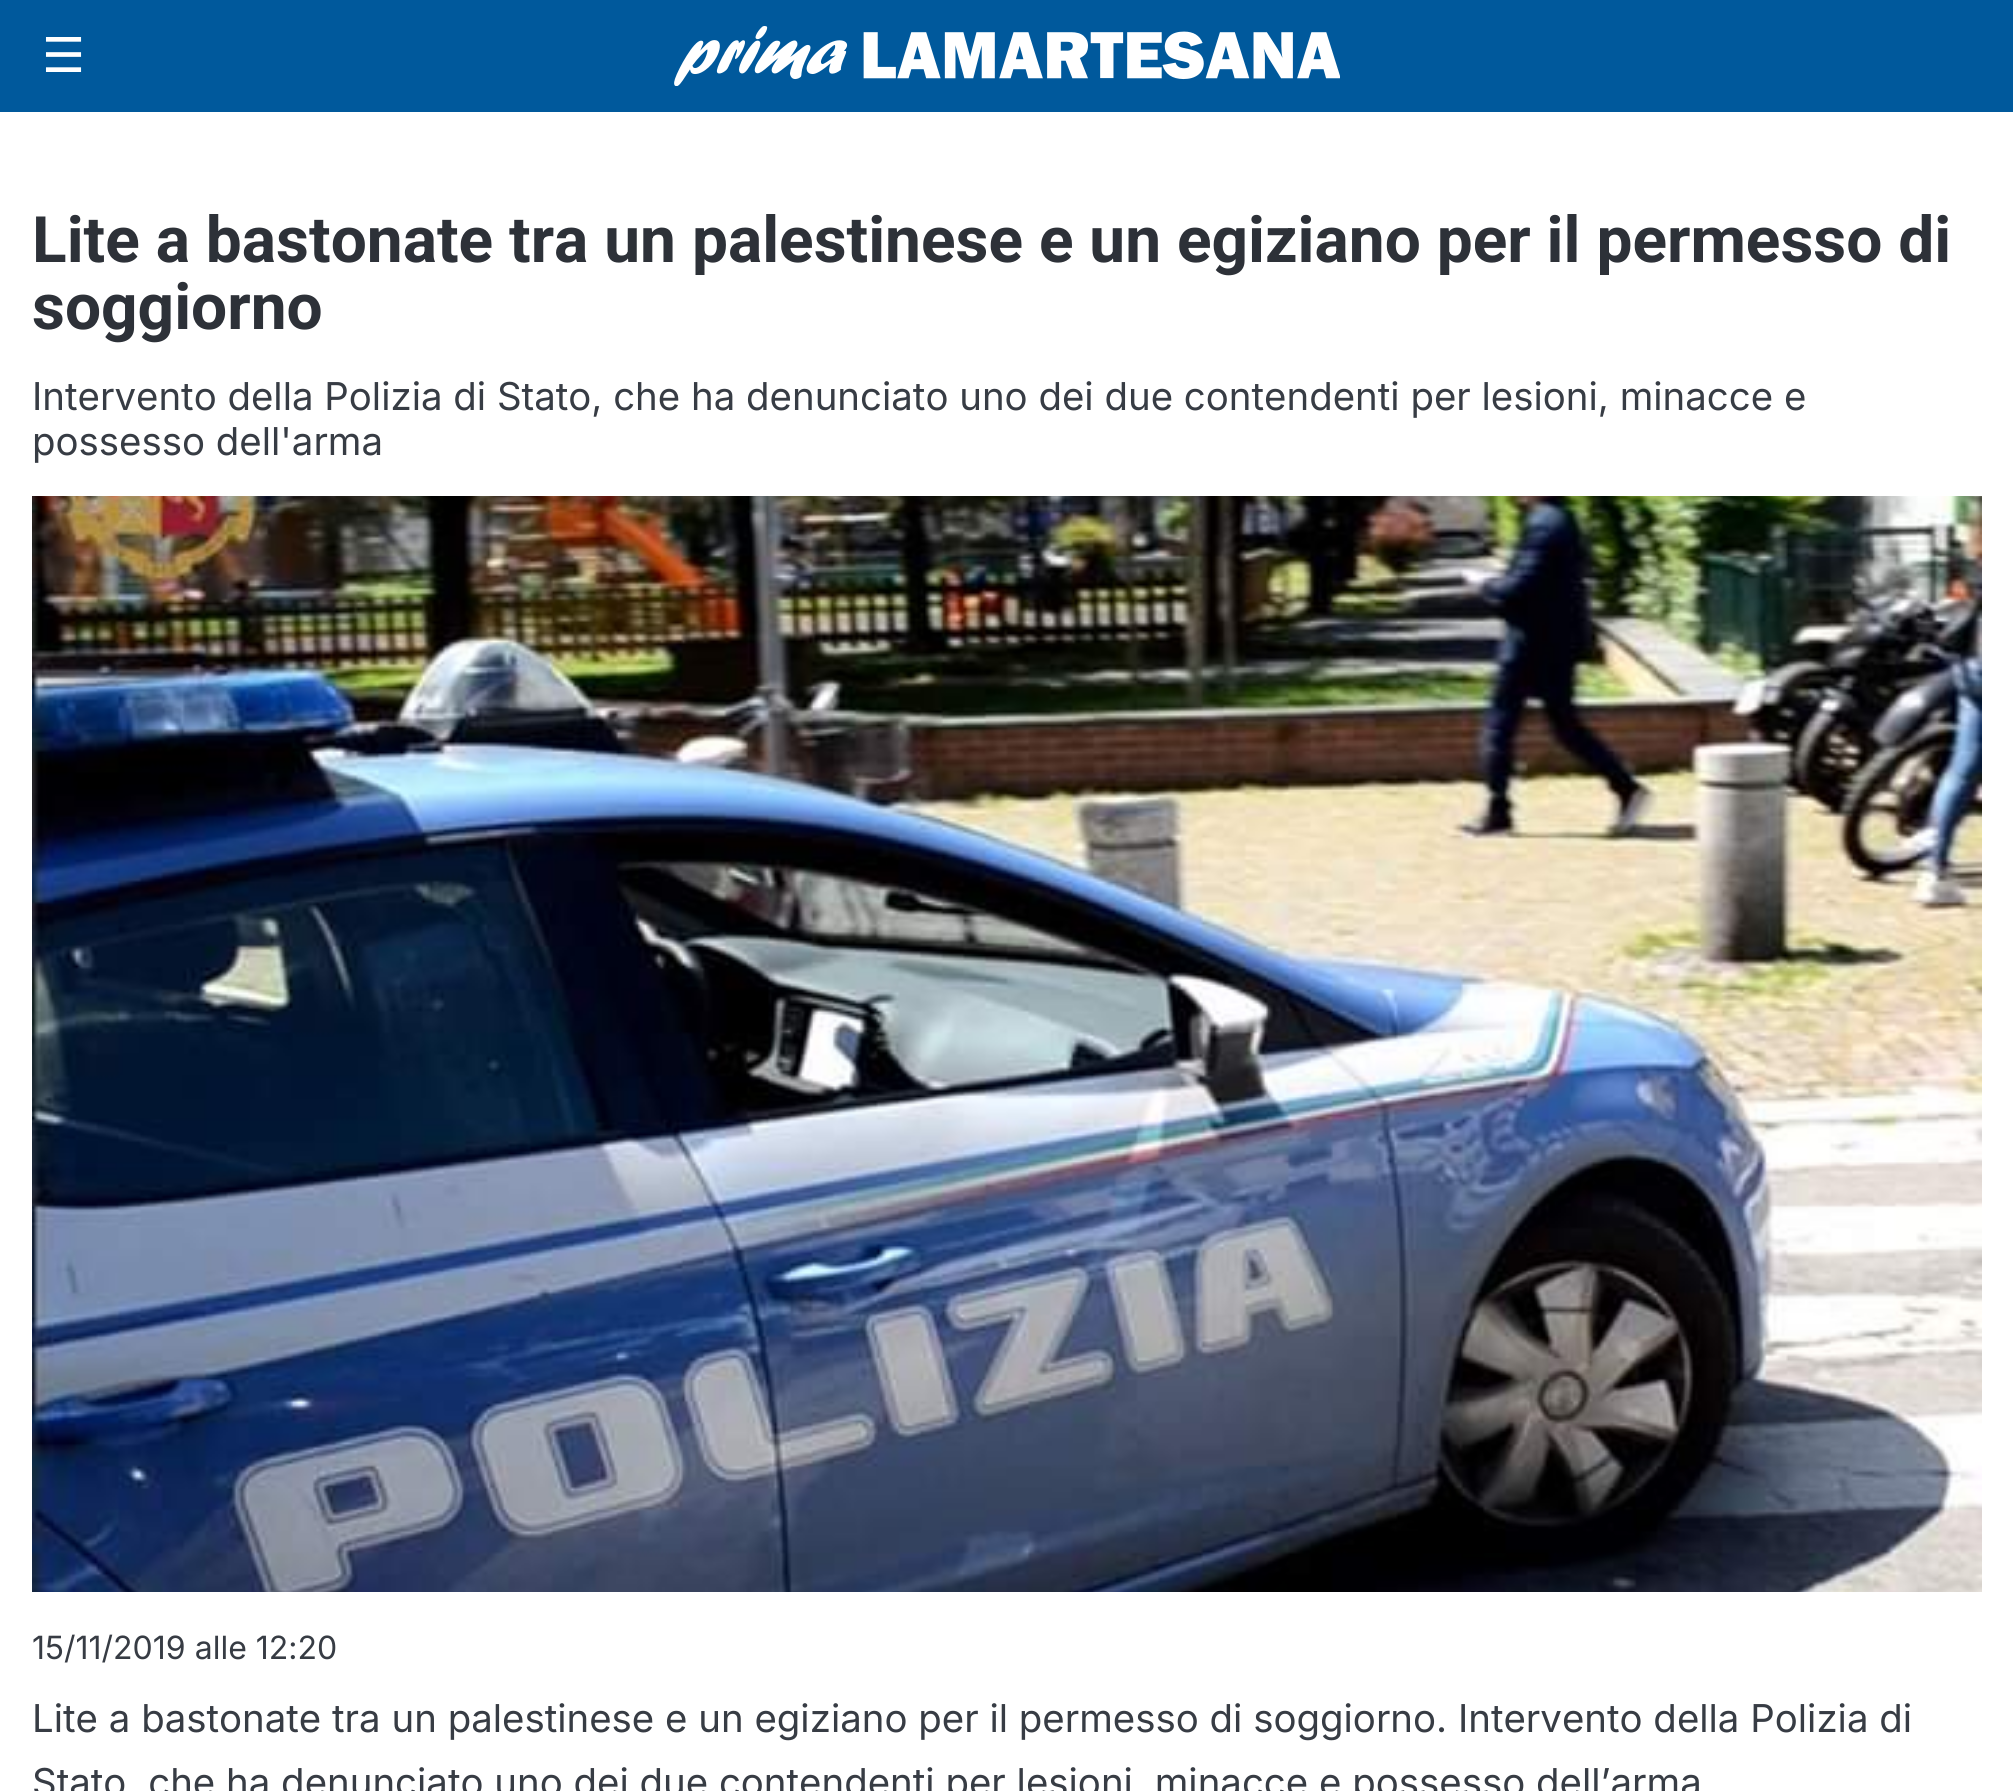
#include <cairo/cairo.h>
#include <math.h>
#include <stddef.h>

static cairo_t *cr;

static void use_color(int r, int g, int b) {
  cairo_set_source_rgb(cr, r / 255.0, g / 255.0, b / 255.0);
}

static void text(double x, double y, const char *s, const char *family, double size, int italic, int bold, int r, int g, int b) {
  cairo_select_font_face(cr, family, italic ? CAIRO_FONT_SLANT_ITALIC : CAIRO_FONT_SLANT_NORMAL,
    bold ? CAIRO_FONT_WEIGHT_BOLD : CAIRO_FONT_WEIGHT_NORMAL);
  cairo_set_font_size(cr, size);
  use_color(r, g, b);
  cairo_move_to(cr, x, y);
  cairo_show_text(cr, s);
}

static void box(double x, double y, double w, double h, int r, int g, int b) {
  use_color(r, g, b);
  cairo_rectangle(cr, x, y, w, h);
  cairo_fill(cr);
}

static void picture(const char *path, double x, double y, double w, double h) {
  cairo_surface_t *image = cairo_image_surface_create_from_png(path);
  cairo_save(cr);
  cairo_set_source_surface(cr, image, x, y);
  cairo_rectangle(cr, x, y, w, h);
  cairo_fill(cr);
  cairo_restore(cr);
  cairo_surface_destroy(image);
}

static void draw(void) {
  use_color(255, 255, 255);
  cairo_paint(cr);
  box(0, 0, 2013, 112, 0, 89, 156);
  picture("img_01.png", 674, 26, 666, 60);
  picture("img_02.png", 32, 496, 1950, 1096);
  text(42, 72, "☰", "DejaVu Sans", 48, 0, 0, 255, 255, 255);
  text(32, 262, "Lite a bastonate tra un palestinese e un egiziano per il permesso di", "Roboto", 64, 0, 1, 45, 49, 56);
  text(32, 329, "soggiorno", "Roboto", 64, 0, 1, 45, 49, 56);
  text(32, 410, "Intervento della Polizia di Stato, che ha denunciato uno dei due contendenti per lesioni, minacce e", "Inter", 38.4, 0, 0, 55, 60, 68);
  text(32, 455, "possesso dell'arma", "Inter", 38.4, 0, 0, 55, 60, 68);
  text(32, 1659, "15/11/2019 alle 12:20", "Inter", 32, 0, 0, 55, 60, 68);
  text(32, 1732, "Lite a bastonate tra un palestinese e un egiziano per il permesso di soggiorno. Intervento della Polizia di", "Inter", 38.4, 0, 0, 55, 60, 68);
  text(32, 1796, "Stato, che ha denunciato uno dei due contendenti per lesioni, minacce e possesso dell’arma", "Inter", 38.4, 0, 0, 55, 60, 68);
}

int main(void) {
  cairo_surface_t *surface = cairo_image_surface_create(CAIRO_FORMAT_RGB24, 2013, 1791);
  cr = cairo_create(surface);
  cairo_font_options_t *options = cairo_font_options_create();
  cairo_font_options_set_hint_metrics(options, CAIRO_HINT_METRICS_OFF);
  cairo_font_options_set_hint_style(options, CAIRO_HINT_STYLE_NONE);
  cairo_set_font_options(cr, options);
  cairo_set_miter_limit(cr, 4);
  draw();
  cairo_surface_write_to_png(surface, "out.png");
  cairo_font_options_destroy(options);
  cairo_destroy(cr);
  cairo_surface_destroy(surface);
  return 0;
}
